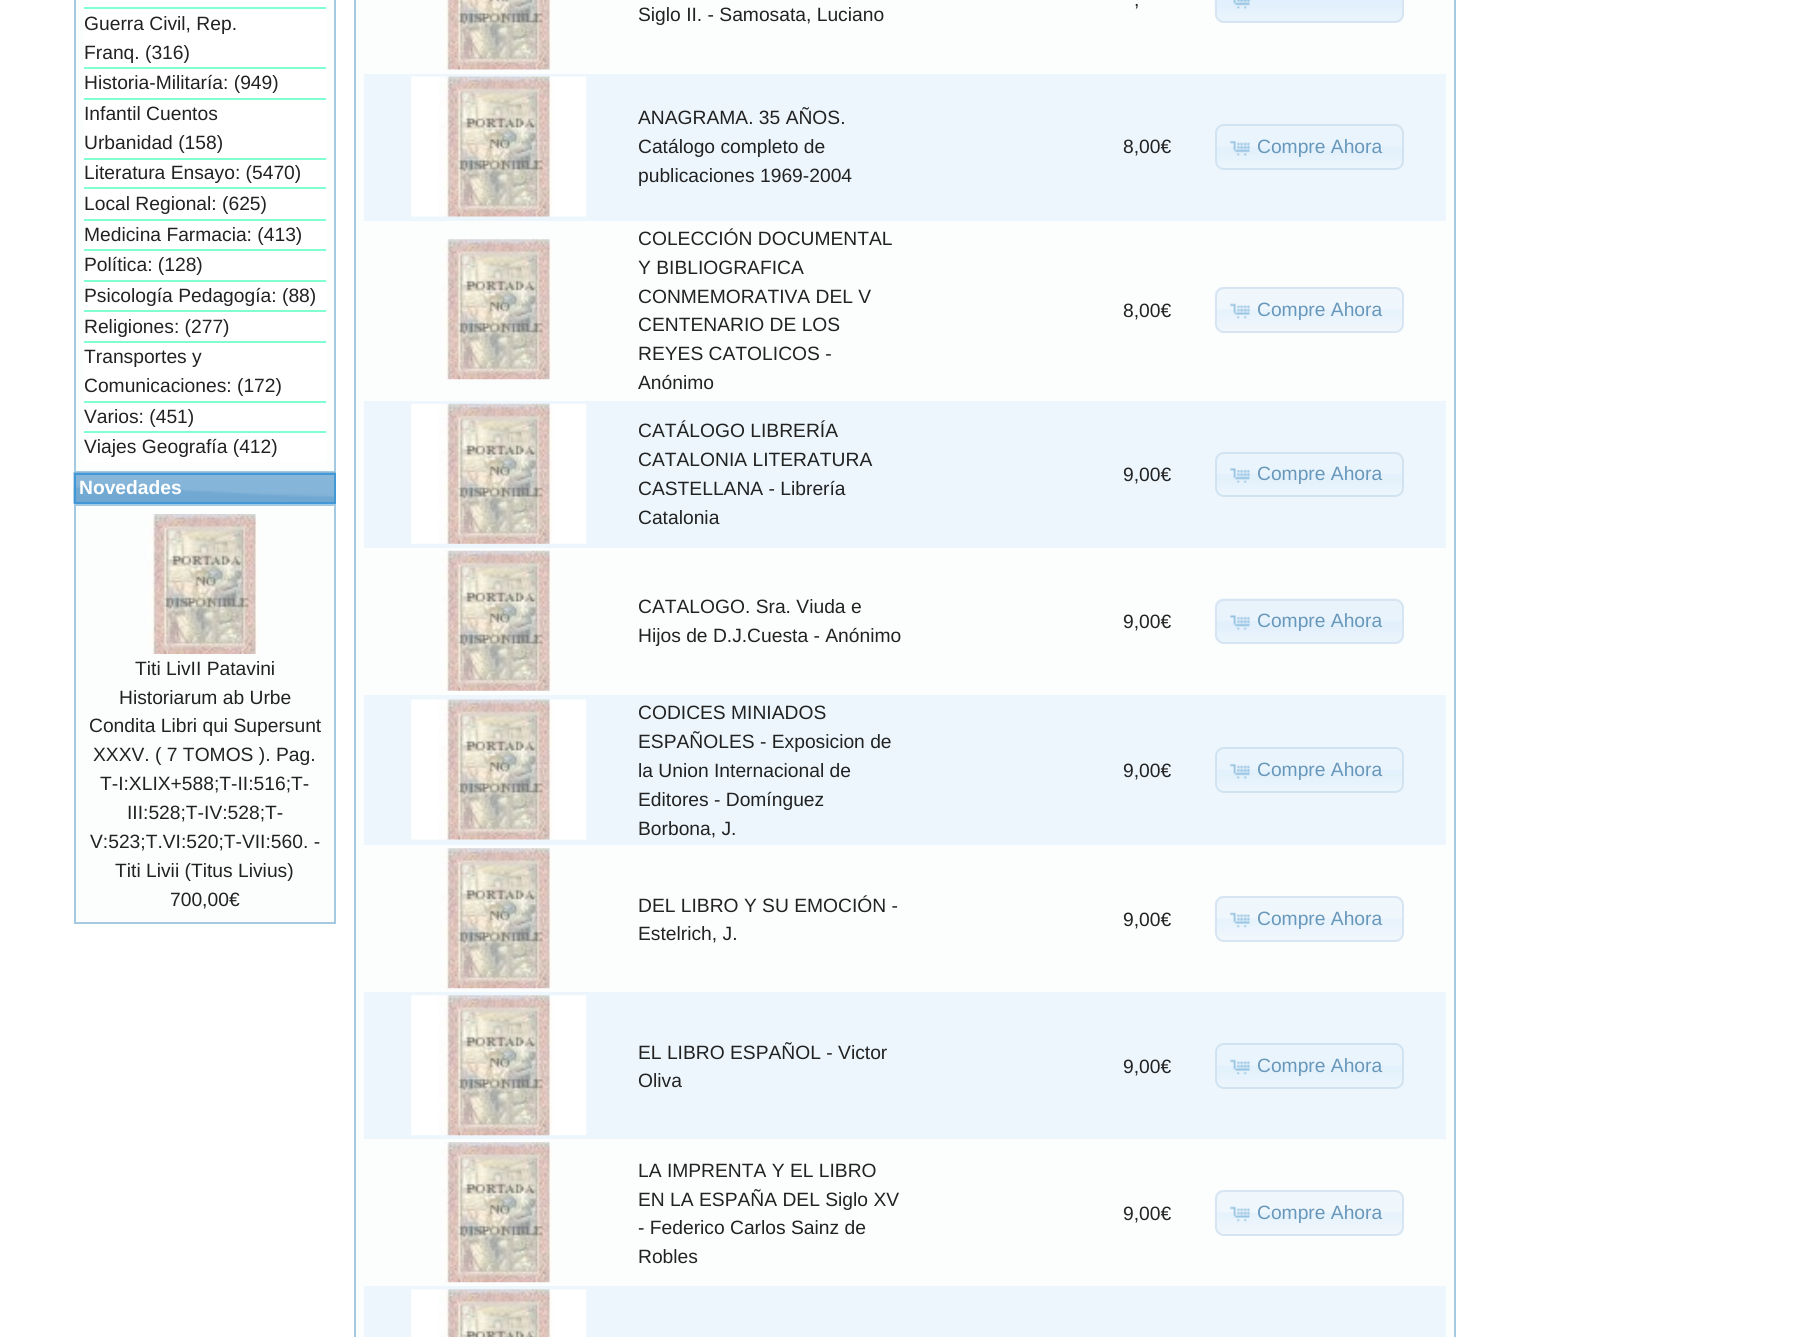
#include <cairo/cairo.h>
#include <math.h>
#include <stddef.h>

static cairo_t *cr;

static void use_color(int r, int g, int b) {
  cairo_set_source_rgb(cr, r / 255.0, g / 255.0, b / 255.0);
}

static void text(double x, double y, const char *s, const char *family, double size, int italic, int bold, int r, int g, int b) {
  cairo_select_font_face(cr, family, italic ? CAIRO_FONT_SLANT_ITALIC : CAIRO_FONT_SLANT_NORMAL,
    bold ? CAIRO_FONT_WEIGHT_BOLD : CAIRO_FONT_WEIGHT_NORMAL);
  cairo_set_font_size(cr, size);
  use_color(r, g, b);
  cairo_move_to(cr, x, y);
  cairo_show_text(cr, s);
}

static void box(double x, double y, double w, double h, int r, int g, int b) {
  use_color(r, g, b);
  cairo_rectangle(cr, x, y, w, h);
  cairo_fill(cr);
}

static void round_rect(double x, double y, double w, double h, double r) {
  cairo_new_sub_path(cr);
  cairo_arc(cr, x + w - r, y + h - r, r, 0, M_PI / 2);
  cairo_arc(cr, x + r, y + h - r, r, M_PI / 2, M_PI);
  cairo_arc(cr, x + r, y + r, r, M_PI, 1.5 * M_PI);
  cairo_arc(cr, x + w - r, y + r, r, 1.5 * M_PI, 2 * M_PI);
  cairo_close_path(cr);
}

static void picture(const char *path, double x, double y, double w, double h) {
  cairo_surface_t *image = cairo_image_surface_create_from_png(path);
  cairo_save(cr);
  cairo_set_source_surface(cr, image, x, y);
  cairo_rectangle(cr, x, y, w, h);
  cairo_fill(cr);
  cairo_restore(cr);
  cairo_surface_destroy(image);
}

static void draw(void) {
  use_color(255, 255, 255);
  cairo_paint(cr);
  use_color(252, 253, 253);
  cairo_rectangle(cr, 75, -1, 260, 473);
  cairo_fill_preserve(cr);
  use_color(166, 201, 226);
  cairo_stroke(cr);
  box(84, 0, 242, 462, 255, 255, 255);
  box(84, 7, 242, 2, 128, 255, 208);
  box(84, 67, 242, 2, 128, 255, 208);
  box(84, 98, 242, 2, 128, 255, 208);
  box(84, 158, 242, 2, 128, 255, 208);
  box(84, 187, 242, 2, 128, 255, 208);
  box(84, 219, 242, 2, 128, 255, 208);
  box(84, 249, 242, 2, 128, 255, 208);
  box(84, 280, 242, 2, 128, 255, 208);
  box(84, 310, 242, 2, 128, 255, 208);
  box(84, 341, 242, 2, 128, 255, 208);
  box(84, 401, 242, 2, 128, 255, 208);
  box(84, 431, 242, 2, 128, 255, 208);
  picture("img_01.png", 73, 472, 263, 32);
  cairo_rectangle(cr, 75, 474, 260, 29);
  use_color(66, 151, 215);
  cairo_stroke(cr);
  use_color(252, 253, 253);
  cairo_rectangle(cr, 75, 505, 260, 418);
  cairo_fill_preserve(cr);
  use_color(166, 201, 226);
  cairo_stroke(cr);
  picture("img_02.png", 147, 514, 111, 140);
  use_color(252, 253, 253);
  cairo_rectangle(cr, 355, -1, 1100, 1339);
  cairo_fill_preserve(cr);
  use_color(166, 201, 226);
  cairo_stroke(cr);
  picture("img_03.png", 444, 0, 108, 70);
  use_color(232, 243, 252);
  round_rect(1215, -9, 189, 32, 9);
  cairo_fill(cr);
  picture("img_04.png", 1214, 0, 188, 18);
  round_rect(1216, -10, 187, 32, 8);
  use_color(214, 229, 241);
  cairo_stroke(cr);
  picture("img_05.png", 1233, 0, 17, 9);
  box(364, 74, 1082, 147, 236, 246, 252);
  picture("img_06.png", 411, 76, 176, 141);
  picture("img_07.png", 1215, 124, 188, 45);
  round_rect(1216, 125, 187, 44, 8);
  use_color(209, 227, 241);
  cairo_stroke(cr);
  picture("img_08.png", 1229, 140, 21, 16);
  picture("img_09.png", 441, 239, 111, 141);
  picture("img_10.png", 1214, 287, 189, 45);
  round_rect(1216, 288, 187, 44, 8);
  use_color(214, 229, 241);
  cairo_stroke(cr);
  picture("img_11.png", 1229, 303, 21, 16);
  box(364, 401, 1082, 147, 236, 246, 252);
  picture("img_12.png", 411, 403, 176, 141);
  picture("img_13.png", 1215, 452, 188, 44);
  round_rect(1216, 453, 187, 43, 8);
  use_color(209, 227, 241);
  cairo_stroke(cr);
  picture("img_14.png", 1229, 468, 21, 15);
  picture("img_15.png", 441, 550, 111, 141);
  use_color(232, 243, 252);
  round_rect(1215, 599, 189, 45, 9);
  cairo_fill(cr);
  picture("img_16.png", 1214, 598, 189, 41);
  round_rect(1216, 600, 187, 43, 8);
  use_color(214, 229, 241);
  cairo_stroke(cr);
  picture("img_17.png", 1229, 615, 21, 15);
  box(364, 695, 1082, 150, 236, 246, 252);
  picture("img_06.png", 411, 699, 176, 141);
  picture("img_07.png", 1215, 747, 188, 45);
  round_rect(1216, 748, 187, 44, 8);
  use_color(209, 227, 241);
  cairo_stroke(cr);
  picture("img_08.png", 1229, 763, 21, 16);
  picture("img_09.png", 441, 848, 111, 141);
  picture("img_10.png", 1214, 896, 189, 45);
  round_rect(1216, 897, 187, 44, 8);
  use_color(214, 229, 241);
  cairo_stroke(cr);
  picture("img_11.png", 1229, 912, 21, 16);
  box(364, 992, 1082, 147, 236, 246, 252);
  picture("img_18.png", 411, 995, 176, 141);
  picture("img_19.png", 1215, 1043, 188, 45);
  round_rect(1216, 1044, 187, 44, 8);
  use_color(209, 227, 241);
  cairo_stroke(cr);
  picture("img_20.png", 1229, 1059, 21, 16);
  picture("img_09.png", 441, 1142, 111, 141);
  picture("img_10.png", 1214, 1190, 189, 45);
  round_rect(1216, 1191, 187, 44, 8);
  use_color(214, 229, 241);
  cairo_stroke(cr);
  picture("img_11.png", 1229, 1206, 21, 16);
  box(364, 1286, 1082, 51, 236, 246, 252);
  picture("img_21.png", 411, 1289, 176, 48);
  text(84, 30, "Guerra Civil, Rep.", "Liberation Sans", 19.25, 0, 0, 34, 34, 34);
  text(84, 59, "Franq. (316)", "Liberation Sans", 19.25, 0, 0, 34, 34, 34);
  text(84, 89, "Historia-Militaría: (949)", "Liberation Sans", 19.25, 0, 0, 34, 34, 34);
  text(84, 120, "Infantil Cuentos", "Liberation Sans", 19.25, 0, 0, 34, 34, 34);
  text(84, 149, "Urbanidad (158)", "Liberation Sans", 19.25, 0, 0, 34, 34, 34);
  text(84, 179, "Literatura Ensayo: (5470)", "Liberation Sans", 19.25, 0, 0, 34, 34, 34);
  text(84, 210, "Local Regional: (625)", "Liberation Sans", 19.25, 0, 0, 34, 34, 34);
  text(84, 241, "Medicina Farmacia: (413)", "Liberation Sans", 19.25, 0, 0, 34, 34, 34);
  text(84, 271, "Política: (128)", "Liberation Sans", 19.25, 0, 0, 34, 34, 34);
  text(84, 302, "Psicología Pedagogía: (88)", "Liberation Sans", 19.25, 0, 0, 34, 34, 34);
  text(84, 333, "Religiones: (277)", "Liberation Sans", 19.25, 0, 0, 34, 34, 34);
  text(84, 363, "Transportes y", "Liberation Sans", 19.25, 0, 0, 34, 34, 34);
  text(84, 392, "Comunicaciones: (172)", "Liberation Sans", 19.25, 0, 0, 34, 34, 34);
  text(84, 423, "Varios: (451)", "Liberation Sans", 19.25, 0, 0, 34, 34, 34);
  text(84, 453, "Viajes Geografía (412)", "Liberation Sans", 19.25, 0, 0, 34, 34, 34);
  text(79, 494, "Novedades", "Liberation Sans", 19.25, 0, 1, 255, 255, 255);
  text(135, 675, "Titi LivII Patavini", "Liberation Sans", 19.25, 0, 0, 34, 34, 34);
  text(119, 704, "Historiarum ab Urbe", "Liberation Sans", 19.25, 0, 0, 34, 34, 34);
  text(89, 732, "Condita Libri qui Supersunt", "Liberation Sans", 19.25, 0, 0, 34, 34, 34);
  text(93, 761, "XXXV. ( 7 TOMOS ). Pag.", "Liberation Sans", 19.25, 0, 0, 34, 34, 34);
  text(100, 790, "T-I:XLIX+588;T-II:516;T-", "Liberation Sans", 19.25, 0, 0, 34, 34, 34);
  text(127, 819, "III:528;T-IV:528;T-", "Liberation Sans", 19.25, 0, 0, 34, 34, 34);
  text(90, 848, "V:523;T.VI:520;T-VII:560. -", "Liberation Sans", 19.25, 0, 0, 34, 34, 34);
  text(115, 877, "Titi Livii (Titus Livius)", "Liberation Sans", 19.25, 0, 0, 34, 34, 34);
  text(170, 906, "700,00€", "Liberation Sans", 19.25, 0, 0, 34, 34, 34);
  text(1134, 6, ",", "Liberation Sans", 19.25, 0, 0, 34, 34, 34);
  text(638, 21, "Siglo II. - Samosata, Luciano", "Liberation Sans", 19.25, 0, 0, 34, 34, 34);
  text(638, 124, "ANAGRAMA. 35 AÑOS.", "Liberation Sans", 19.25, 0, 0, 34, 34, 34);
  text(638, 153, "Catálogo completo de", "Liberation Sans", 19.25, 0, 0, 34, 34, 34);
  text(638, 182, "publicaciones 1969-2004", "Liberation Sans", 19.25, 0, 0, 34, 34, 34);
  text(1123, 153, "8,00€", "Liberation Sans", 19.25, 0, 0, 34, 34, 34);
  text(1257, 153, "Compre Ahora", "Liberation Sans", 19.25, 0, 0, 103, 151, 186);
  text(638, 245, "COLECCIÓN DOCUMENTAL", "Liberation Sans", 19.25, 0, 0, 34, 34, 34);
  text(638, 274, "Y BIBLIOGRAFICA", "Liberation Sans", 19.25, 0, 0, 34, 34, 34);
  text(638, 303, "CONMEMORATIVA DEL V", "Liberation Sans", 19.25, 0, 0, 34, 34, 34);
  text(638, 331, "CENTENARIO DE LOS", "Liberation Sans", 19.25, 0, 0, 34, 34, 34);
  text(638, 360, "REYES CATOLICOS -", "Liberation Sans", 19.25, 0, 0, 34, 34, 34);
  text(638, 389, "Anónimo", "Liberation Sans", 19.25, 0, 0, 34, 34, 34);
  text(1123, 317, "8,00€", "Liberation Sans", 19.25, 0, 0, 34, 34, 34);
  text(1257, 316, "Compre Ahora", "Liberation Sans", 19.25, 0, 0, 103, 151, 186);
  text(638, 437, "CATÁLOGO LIBRERÍA", "Liberation Sans", 19.25, 0, 0, 34, 34, 34);
  text(638, 466, "CATALONIA LITERATURA", "Liberation Sans", 19.25, 0, 0, 34, 34, 34);
  text(638, 495, "CASTELLANA - Librería", "Liberation Sans", 19.25, 0, 0, 34, 34, 34);
  text(638, 524, "Catalonia", "Liberation Sans", 19.25, 0, 0, 34, 34, 34);
  text(1123, 481, "9,00€", "Liberation Sans", 19.25, 0, 0, 34, 34, 34);
  text(1257, 480, "Compre Ahora", "Liberation Sans", 19.25, 0, 0, 103, 151, 186);
  text(638, 613, "CATALOGO. Sra. Viuda e", "Liberation Sans", 19.25, 0, 0, 34, 34, 34);
  text(638, 642, "Hijos de D.J.Cuesta - Anónimo", "Liberation Sans", 19.25, 0, 0, 34, 34, 34);
  text(1123, 628, "9,00€", "Liberation Sans", 19.25, 0, 0, 34, 34, 34);
  text(1257, 627, "Compre Ahora", "Liberation Sans", 19.25, 0, 0, 103, 151, 186);
  text(638, 719, "CODICES MINIADOS", "Liberation Sans", 19.25, 0, 0, 34, 34, 34);
  text(638, 748, "ESPAÑOLES - Exposicion de", "Liberation Sans", 19.25, 0, 0, 34, 34, 34);
  text(638, 777, "la Union Internacional de", "Liberation Sans", 19.25, 0, 0, 34, 34, 34);
  text(638, 806, "Editores - Domínguez", "Liberation Sans", 19.25, 0, 0, 34, 34, 34);
  text(638, 835, "Borbona, J.", "Liberation Sans", 19.25, 0, 0, 34, 34, 34);
  text(1123, 777, "9,00€", "Liberation Sans", 19.25, 0, 0, 34, 34, 34);
  text(1257, 776, "Compre Ahora", "Liberation Sans", 19.25, 0, 0, 103, 151, 186);
  text(638, 912, "DEL LIBRO Y SU EMOCIÓN -", "Liberation Sans", 19.25, 0, 0, 34, 34, 34);
  text(638, 940, "Estelrich, J.", "Liberation Sans", 19.25, 0, 0, 34, 34, 34);
  text(1123, 926, "9,00€", "Liberation Sans", 19.25, 0, 0, 34, 34, 34);
  text(1257, 925, "Compre Ahora", "Liberation Sans", 19.25, 0, 0, 103, 151, 186);
  text(638, 1059, "EL LIBRO ESPAÑOL - Victor", "Liberation Sans", 19.25, 0, 0, 34, 34, 34);
  text(638, 1087, "Oliva", "Liberation Sans", 19.25, 0, 0, 34, 34, 34);
  text(1123, 1073, "9,00€", "Liberation Sans", 19.25, 0, 0, 34, 34, 34);
  text(1257, 1072, "Compre Ahora", "Liberation Sans", 19.25, 0, 0, 103, 151, 186);
  text(638, 1177, "LA IMPRENTA Y EL LIBRO", "Liberation Sans", 19.25, 0, 0, 34, 34, 34);
  text(638, 1206, "EN LA ESPAÑA DEL Siglo XV", "Liberation Sans", 19.25, 0, 0, 34, 34, 34);
  text(638, 1234, "- Federico Carlos Sainz de", "Liberation Sans", 19.25, 0, 0, 34, 34, 34);
  text(638, 1263, "Robles", "Liberation Sans", 19.25, 0, 0, 34, 34, 34);
  text(1123, 1220, "9,00€", "Liberation Sans", 19.25, 0, 0, 34, 34, 34);
  text(1257, 1219, "Compre Ahora", "Liberation Sans", 19.25, 0, 0, 103, 151, 186);
}

int main(void) {
  cairo_surface_t *surface = cairo_image_surface_create(CAIRO_FORMAT_RGB24, 1808, 1337);
  cr = cairo_create(surface);
  cairo_font_options_t *options = cairo_font_options_create();
  cairo_font_options_set_hint_metrics(options, CAIRO_HINT_METRICS_OFF);
  cairo_font_options_set_hint_style(options, CAIRO_HINT_STYLE_NONE);
  cairo_set_font_options(cr, options);
  cairo_set_miter_limit(cr, 4);
  draw();
  cairo_surface_write_to_png(surface, "out.png");
  cairo_font_options_destroy(options);
  cairo_destroy(cr);
  cairo_surface_destroy(surface);
  return 0;
}
